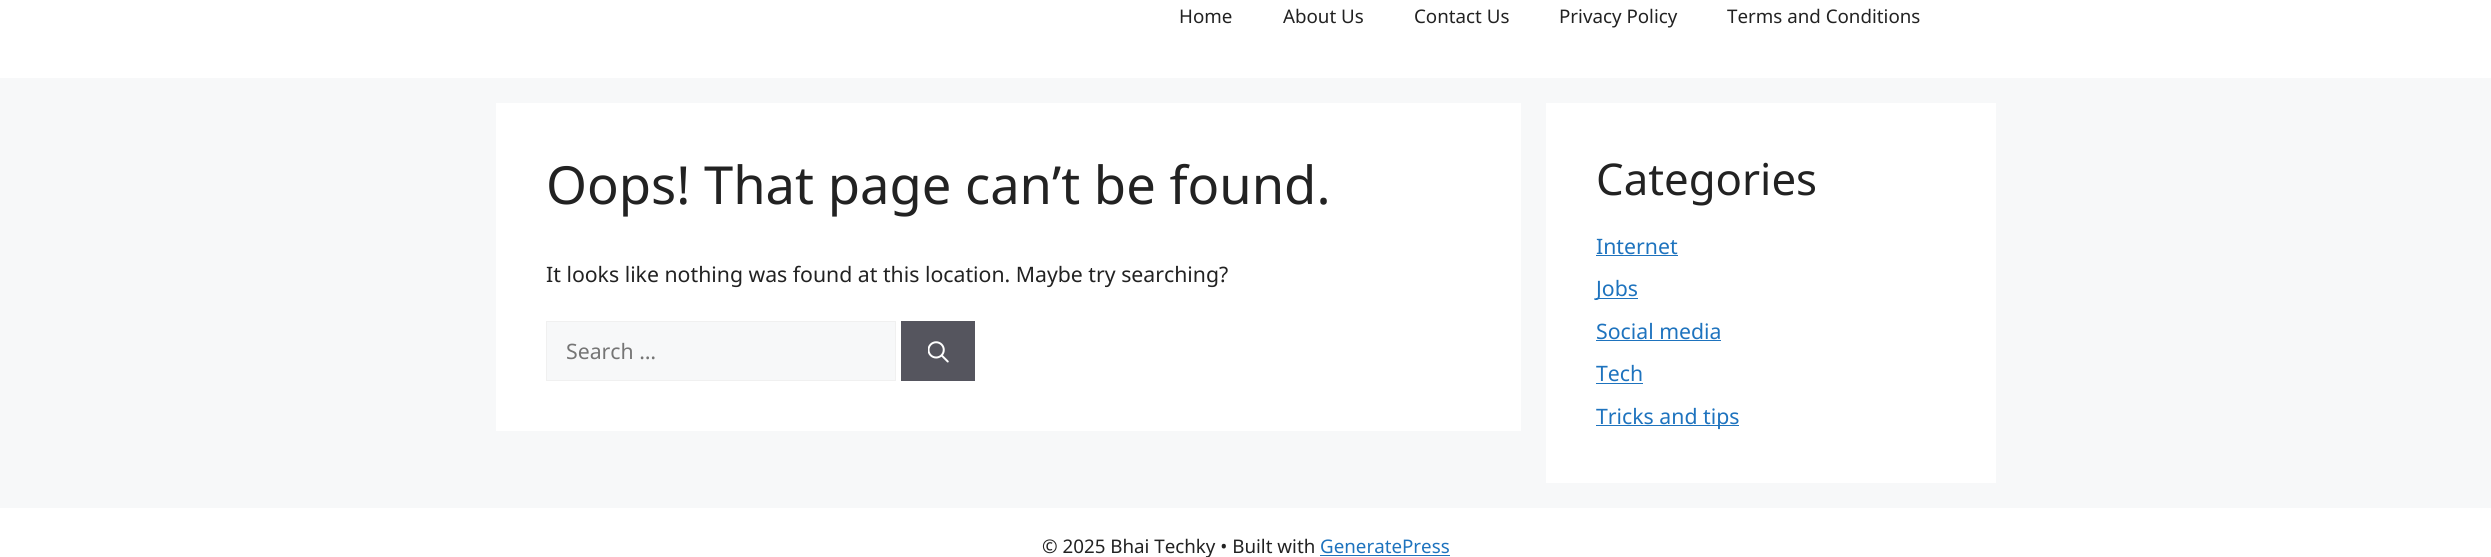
#include <cairo/cairo.h>
#include <math.h>
#include <stddef.h>

static cairo_t *cr;

static void use_color(int r, int g, int b) {
  cairo_set_source_rgb(cr, r / 255.0, g / 255.0, b / 255.0);
}

static void text(double x, double y, const char *s, const char *family, double size, int italic, int bold, int r, int g, int b) {
  cairo_select_font_face(cr, family, italic ? CAIRO_FONT_SLANT_ITALIC : CAIRO_FONT_SLANT_NORMAL,
    bold ? CAIRO_FONT_WEIGHT_BOLD : CAIRO_FONT_WEIGHT_NORMAL);
  cairo_set_font_size(cr, size);
  use_color(r, g, b);
  cairo_move_to(cr, x, y);
  cairo_show_text(cr, s);
}

static void box(double x, double y, double w, double h, int r, int g, int b) {
  use_color(r, g, b);
  cairo_rectangle(cr, x, y, w, h);
  cairo_fill(cr);
}

static void picture(const char *path, double x, double y, double w, double h) {
  cairo_surface_t *image = cairo_image_surface_create_from_png(path);
  cairo_save(cr);
  cairo_set_source_surface(cr, image, x, y);
  cairo_rectangle(cr, x, y, w, h);
  cairo_fill(cr);
  cairo_restore(cr);
  cairo_surface_destroy(image);
}

static void draw(void) {
  use_color(247, 248, 249);
  cairo_paint(cr);
  box(0, 0, 2491, 78, 255, 255, 255);
  box(496, 103, 1025, 328, 255, 255, 255);
  use_color(247, 248, 249);
  cairo_rectangle(cr, 546.5, 321.5, 349, 59);
  cairo_fill_preserve(cr);
  use_color(240, 240, 240);
  cairo_set_line_width(cr, 1);
  cairo_stroke(cr);
  box(901, 321, 74, 60, 85, 85, 94);
  picture("img_01.png", 928, 341, 21, 22);
  box(1546, 103, 450, 380, 255, 255, 255);
  box(1596, 255, 82, 1, 30, 115, 190);
  box(1596, 298, 42, 1, 30, 115, 190);
  box(1596, 340, 125, 1, 30, 115, 190);
  box(1596, 383, 47, 1, 30, 115, 190);
  box(1596, 425, 143, 1, 30, 115, 190);
  box(0, 508, 2491, 49, 255, 255, 255);
  box(1320, 555, 130, 1, 30, 115, 190);
  text(1179, 23, "Home", "Noto Sans", 18.75, 0, 0, 34, 34, 34);
  text(1283, 23, "About Us", "Noto Sans", 18.75, 0, 0, 34, 34, 34);
  text(1414, 23, "Contact Us", "Noto Sans", 18.75, 0, 0, 34, 34, 34);
  text(1559, 23, "Privacy Policy", "Noto Sans", 18.75, 0, 0, 34, 34, 34);
  text(1727, 23, "Terms and Conditions", "Noto Sans", 18.75, 0, 0, 34, 34, 34);
  text(546, 204, "Oops! That page can’t be found.", "Noto Sans", 52.5, 0, 0, 34, 34, 34);
  text(546, 282, "It looks like nothing was found at this location. Maybe try searching?", "Noto Sans", 21.25, 0, 0, 34, 34, 34);
  text(566, 359, "Search …", "Noto Sans", 21.25, 0, 0, 117, 117, 117);
  text(1596, 195, "Categories", "Noto Sans", 43.75, 0, 0, 34, 34, 34);
  text(1596, 254, "Internet", "Noto Sans", 21.25, 0, 0, 30, 115, 190);
  text(1596, 296, "Jobs", "Noto Sans", 21.25, 0, 0, 30, 115, 190);
  text(1596, 339, "Social media", "Noto Sans", 21.25, 0, 0, 30, 115, 190);
  text(1596, 381, "Tech", "Noto Sans", 21.25, 0, 0, 30, 115, 190);
  text(1596, 424, "Tricks and tips", "Noto Sans", 21.25, 0, 0, 30, 115, 190);
  text(1042, 553, "© 2025 Bhai Techky • Built with", "Noto Sans", 18.75, 0, 0, 34, 34, 34);
  text(1320, 553, "GeneratePress", "Noto Sans", 18.75, 0, 0, 30, 115, 190);
}

int main(void) {
  cairo_surface_t *surface = cairo_image_surface_create(CAIRO_FORMAT_RGB24, 2491, 557);
  cr = cairo_create(surface);
  cairo_font_options_t *options = cairo_font_options_create();
  cairo_font_options_set_hint_metrics(options, CAIRO_HINT_METRICS_OFF);
  cairo_font_options_set_hint_style(options, CAIRO_HINT_STYLE_NONE);
  cairo_set_font_options(cr, options);
  cairo_set_miter_limit(cr, 4);
  draw();
  cairo_surface_write_to_png(surface, "out.png");
  cairo_font_options_destroy(options);
  cairo_destroy(cr);
  cairo_surface_destroy(surface);
  return 0;
}
